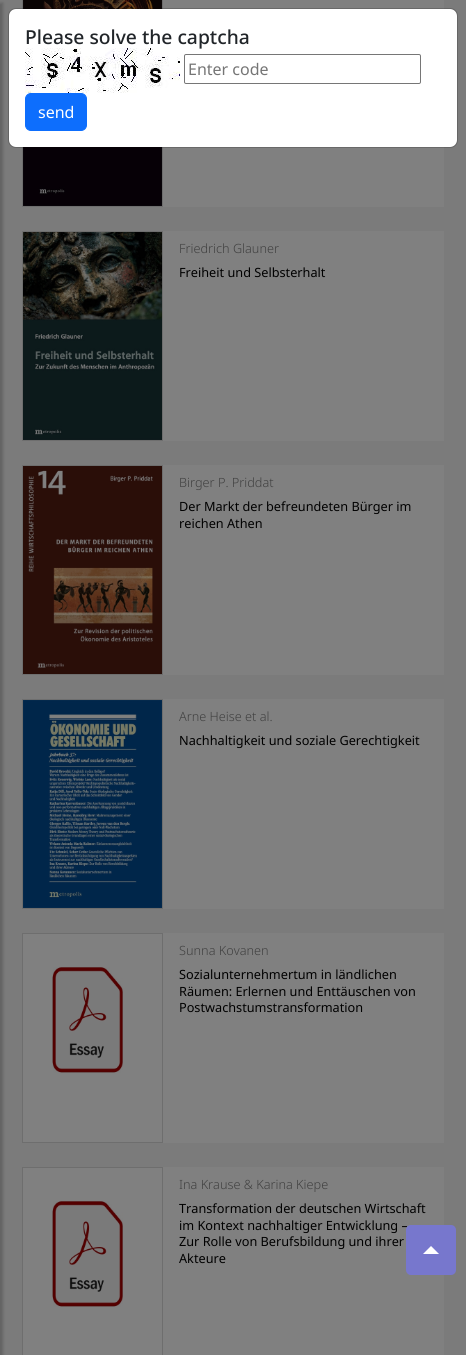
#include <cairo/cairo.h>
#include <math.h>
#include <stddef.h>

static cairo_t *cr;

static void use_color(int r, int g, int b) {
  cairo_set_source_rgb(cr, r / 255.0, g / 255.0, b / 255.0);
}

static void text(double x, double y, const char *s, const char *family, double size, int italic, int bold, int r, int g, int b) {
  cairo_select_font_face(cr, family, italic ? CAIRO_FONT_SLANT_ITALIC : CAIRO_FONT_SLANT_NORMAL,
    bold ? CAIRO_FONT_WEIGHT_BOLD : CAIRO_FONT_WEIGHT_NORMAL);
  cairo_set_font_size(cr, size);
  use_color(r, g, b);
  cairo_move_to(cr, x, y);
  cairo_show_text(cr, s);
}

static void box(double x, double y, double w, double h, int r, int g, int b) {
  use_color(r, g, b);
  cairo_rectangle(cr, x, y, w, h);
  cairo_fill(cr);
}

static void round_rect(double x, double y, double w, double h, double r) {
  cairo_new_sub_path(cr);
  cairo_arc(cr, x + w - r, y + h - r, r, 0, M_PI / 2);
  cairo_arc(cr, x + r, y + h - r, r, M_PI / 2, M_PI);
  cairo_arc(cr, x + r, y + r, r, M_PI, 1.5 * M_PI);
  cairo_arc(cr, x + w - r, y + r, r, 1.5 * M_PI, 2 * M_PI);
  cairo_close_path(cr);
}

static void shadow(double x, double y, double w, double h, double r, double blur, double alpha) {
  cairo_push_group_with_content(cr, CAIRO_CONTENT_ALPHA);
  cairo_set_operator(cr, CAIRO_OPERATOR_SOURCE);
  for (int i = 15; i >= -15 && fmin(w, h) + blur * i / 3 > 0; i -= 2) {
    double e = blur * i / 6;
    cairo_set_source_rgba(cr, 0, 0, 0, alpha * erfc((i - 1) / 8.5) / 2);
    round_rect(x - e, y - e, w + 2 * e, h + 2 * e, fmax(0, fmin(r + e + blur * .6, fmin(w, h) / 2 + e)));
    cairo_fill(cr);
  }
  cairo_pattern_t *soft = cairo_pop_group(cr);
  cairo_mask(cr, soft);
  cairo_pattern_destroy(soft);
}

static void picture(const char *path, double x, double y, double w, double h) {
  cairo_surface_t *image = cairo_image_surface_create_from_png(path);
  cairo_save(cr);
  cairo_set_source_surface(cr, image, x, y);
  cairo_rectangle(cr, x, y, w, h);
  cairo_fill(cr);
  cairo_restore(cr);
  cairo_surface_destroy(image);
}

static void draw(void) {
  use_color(123, 123, 123);
  cairo_paint(cr);
  use_color(0, 0, 0);
  shadow(-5, 3, 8, 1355, 0, 1.5, 0.2);
  box(163, 0, 281, 207, 128, 128, 128);
  cairo_rectangle(cr, 22.5, -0.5, 140, 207);
  use_color(110, 110, 110);
  cairo_set_line_width(cr, 1);
  cairo_stroke(cr);
  picture("img_02.png", 23, 0, 139, 206);
  use_color(255, 255, 255);
  round_rect(9, 9, 448, 138, 7);
  cairo_fill(cr);
  round_rect(8.5, 8.5, 449, 139, 7.5);
  cairo_set_source_rgba(cr, 0, 0, 0, 0.18);
  cairo_stroke(cr);
  round_rect(184.5, 54.5, 236, 29, 1.5);
  use_color(118, 118, 118);
  cairo_stroke(cr);
  use_color(13, 110, 253);
  round_rect(25.5, 93.5, 61, 37, 5.5);
  cairo_fill_preserve(cr);
  cairo_stroke(cr);
  box(163, 231, 281, 210, 128, 128, 128);
  cairo_rectangle(cr, 22.5, 231.5, 140, 209);
  use_color(110, 110, 110);
  cairo_stroke(cr);
  picture("img_03.png", 23, 232, 139, 208);
  box(163, 465, 281, 210, 128, 128, 128);
  cairo_rectangle(cr, 22.5, 465.5, 140, 209);
  use_color(110, 110, 110);
  cairo_stroke(cr);
  picture("img_04.png", 23, 466, 139, 208);
  box(163, 699, 281, 210, 128, 128, 128);
  cairo_rectangle(cr, 22.5, 699.5, 140, 209);
  use_color(110, 110, 110);
  cairo_stroke(cr);
  picture("img_05.png", 23, 700, 139, 208);
  box(23, 933, 421, 210, 128, 128, 128);
  cairo_rectangle(cr, 22.5, 933.5, 140, 209);
  use_color(110, 110, 110);
  cairo_stroke(cr);
  picture("img_06.png", 52, 967, 71, 106);
  box(23, 1167, 421, 188, 128, 128, 128);
  cairo_rectangle(cr, 22.5, 1167.5, 140, 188);
  use_color(110, 110, 110);
  cairo_stroke(cr);
  picture("img_06.png", 52, 1201, 71, 106);
  text(25, 44, "Please solve the captcha", "Noto Sans Medium", 19.25, 0, 0, 33, 37, 41);
  picture("img_01.png", 25, 48, 155, 45);
  text(188, 75, "Enter code", "Noto Sans", 16, 0, 0, 117, 117, 117);
  text(38, 118, "send", "Noto Sans", 16, 0, 0, 255, 255, 255);
  text(179, 253, "Friedrich Glauner", "Noto Sans Light", 12.7, 0, 0, 64, 64, 64);
  text(179, 277, "Freiheit und Selbsterhalt", "Noto Sans", 12.7, 0, 0, 0, 0, 0);
  text(179, 487, "Birger P. Priddat", "Noto Sans Light", 12.7, 0, 0, 64, 64, 64);
  text(179, 511, "Der Markt der befreundeten Bürger im", "Noto Sans", 12.7, 0, 0, 0, 0, 0);
  text(179, 528, "reichen Athen", "Noto Sans", 12.7, 0, 0, 0, 0, 0);
  text(179, 721, "Arne Heise et al.", "Noto Sans Light", 12.7, 0, 0, 64, 64, 64);
  text(179, 745, "Nachhaltigkeit und soziale Gerechtigkeit", "Noto Sans", 12.7, 0, 0, 0, 0, 0);
  text(179, 955, "Sunna Kovanen", "Noto Sans Light", 12.7, 0, 0, 64, 64, 64);
  text(179, 979, "Sozialunternehmertum in ländlichen", "Noto Sans", 12.7, 0, 0, 0, 0, 0);
  text(179, 996, "Räumen: Erlernen und Enttäuschen von", "Noto Sans", 12.7, 0, 0, 0, 0, 0);
  text(179, 1012, "Postwachstumstransformation", "Noto Sans", 12.7, 0, 0, 0, 0, 0);
  text(179, 1189, "Ina Krause & Karina Kiepe", "Noto Sans Light", 12.7, 0, 0, 64, 64, 64);
  text(179, 1213, "Transformation der deutschen Wirtschaft", "Noto Sans", 12.7, 0, 0, 0, 0, 0);
  text(179, 1230, "im Kontext nachhaltiger Entwicklung –", "Noto Sans", 12.7, 0, 0, 0, 0, 0);
  use_color(119, 119, 205);
  round_rect(406, 1225, 50, 50, 5);
  cairo_fill(cr);
  use_color(255, 255, 255);
  cairo_new_path(cr);
  cairo_move_to(cr, 439, 1254);
  cairo_line_to(cr, 423, 1254);
  cairo_line_to(cr, 431, 1246);
  cairo_close_path(cr);
  cairo_fill(cr);
  text(179, 1246, "Zur Rolle von Berufsbildung und ihrer", "Noto Sans", 12.7, 0, 0, 0, 0, 0);
  text(179, 1263, "Akteure", "Noto Sans", 12.7, 0, 0, 0, 0, 0);
}

int main(void) {
  cairo_surface_t *surface = cairo_image_surface_create(CAIRO_FORMAT_RGB24, 466, 1355);
  cr = cairo_create(surface);
  cairo_font_options_t *options = cairo_font_options_create();
  cairo_font_options_set_hint_metrics(options, CAIRO_HINT_METRICS_OFF);
  cairo_font_options_set_hint_style(options, CAIRO_HINT_STYLE_NONE);
  cairo_set_font_options(cr, options);
  cairo_set_miter_limit(cr, 4);
  draw();
  cairo_surface_write_to_png(surface, "out.png");
  cairo_font_options_destroy(options);
  cairo_destroy(cr);
  cairo_surface_destroy(surface);
  return 0;
}
